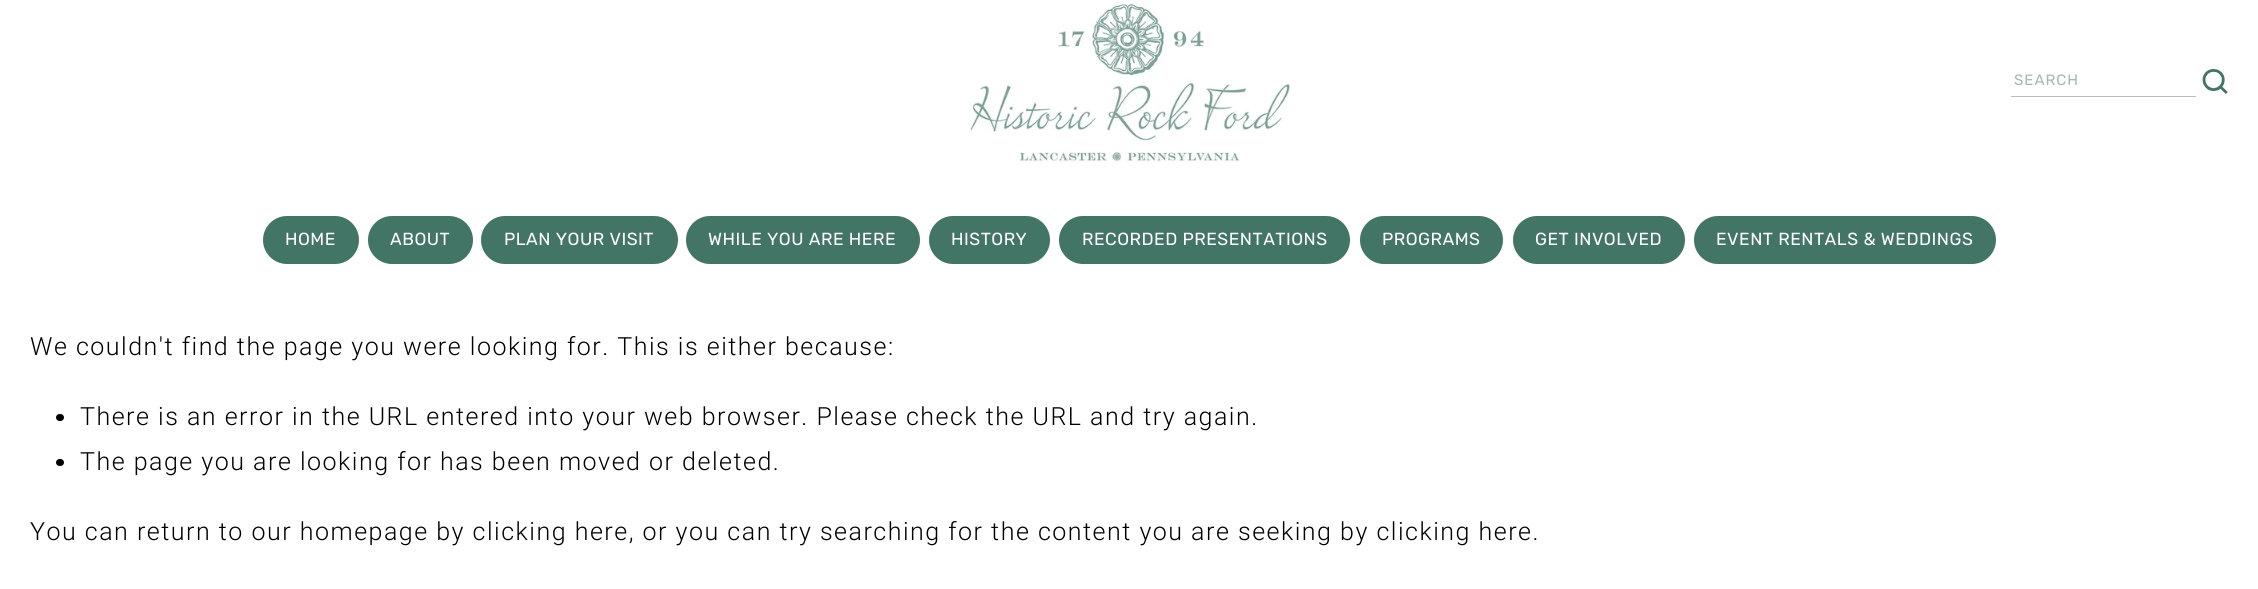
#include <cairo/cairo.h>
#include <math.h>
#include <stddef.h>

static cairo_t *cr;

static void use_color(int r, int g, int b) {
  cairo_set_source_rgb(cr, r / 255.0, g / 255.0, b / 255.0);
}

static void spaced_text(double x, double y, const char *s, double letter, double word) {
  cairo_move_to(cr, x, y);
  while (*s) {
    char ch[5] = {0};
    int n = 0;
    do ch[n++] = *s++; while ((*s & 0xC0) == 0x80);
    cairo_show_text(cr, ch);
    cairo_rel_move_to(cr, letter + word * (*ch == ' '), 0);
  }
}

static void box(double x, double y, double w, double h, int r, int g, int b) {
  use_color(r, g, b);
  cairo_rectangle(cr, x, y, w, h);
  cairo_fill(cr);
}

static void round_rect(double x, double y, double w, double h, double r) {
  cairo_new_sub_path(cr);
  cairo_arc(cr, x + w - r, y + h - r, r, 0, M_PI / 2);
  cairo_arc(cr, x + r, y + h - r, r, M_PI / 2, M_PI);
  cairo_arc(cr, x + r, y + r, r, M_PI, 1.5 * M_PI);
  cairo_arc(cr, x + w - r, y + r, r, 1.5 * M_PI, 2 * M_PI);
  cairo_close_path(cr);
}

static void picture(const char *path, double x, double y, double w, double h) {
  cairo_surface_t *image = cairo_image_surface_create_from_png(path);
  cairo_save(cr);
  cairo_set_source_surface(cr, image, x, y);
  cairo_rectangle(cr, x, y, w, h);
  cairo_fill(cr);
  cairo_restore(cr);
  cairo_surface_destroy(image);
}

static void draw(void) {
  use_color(255, 255, 255);
  cairo_paint(cr);
  picture("img_01.png", 969, 2, 322, 162);
  box(2011, 96, 185, 1, 187, 187, 187);
  picture("img_02.png", 2202, 69, 26, 25);
  use_color(67, 117, 103);
  round_rect(263, 216, 96, 48, 24);
  cairo_fill(cr);
  round_rect(368, 216, 105, 48, 24);
  cairo_fill(cr);
  round_rect(481, 216, 197, 48, 24);
  cairo_fill(cr);
  round_rect(686, 216, 234, 48, 24);
  cairo_fill(cr);
  round_rect(929, 216, 121, 48, 24);
  cairo_fill(cr);
  round_rect(1059, 216, 291, 48, 24);
  cairo_fill(cr);
  round_rect(1360, 216, 143, 48, 24);
  cairo_fill(cr);
  round_rect(1513, 216, 172, 48, 24);
  cairo_fill(cr);
  round_rect(1694, 216, 302, 48, 24);
  cairo_fill(cr);
  use_color(0, 0, 0);
  round_rect(56, 414, 8, 7, 3.5);
  cairo_fill(cr);
  round_rect(56, 459, 8, 7, 3.5);
  cairo_fill(cr);
  cairo_select_font_face(cr, "Rubik", CAIRO_FONT_SLANT_NORMAL, CAIRO_FONT_WEIGHT_NORMAL);
  cairo_set_font_size(cr, 15);
  use_color(161, 186, 179);
  spaced_text(2014, 85, "SEARCH", 1, 0);
  cairo_set_font_size(cr, 17.5);
  use_color(255, 255, 255);
  spaced_text(285, 245, "HOME", 0.5, 0);
  spaced_text(390, 245, "ABOUT", 0.5, 0);
  spaced_text(504, 245, "PLAN YOUR VISIT", 0.5, 0);
  spaced_text(708, 245, "WHILE YOU ARE HERE", 0.5, 0);
  spaced_text(951, 245, "HISTORY", 0.5, 0);
  spaced_text(1082, 245, "RECORDED PRESENTATIONS", 0.5, 0);
  spaced_text(1382, 245, "PROGRAMS", 0.5, 0);
  spaced_text(1535, 245, "GET INVOLVED", 0.5, 0);
  spaced_text(1716, 245, "EVENT RENTALS & WEDDINGS", 0.5, 0);
  cairo_select_font_face(cr, "Roboto Light", CAIRO_FONT_SLANT_NORMAL, CAIRO_FONT_WEIGHT_NORMAL);
  cairo_set_font_size(cr, 25);
  use_color(0, 0, 0);
  spaced_text(30, 355, "We couldn't find the page you were looking for. This is either because:", 1.5, 0);
  spaced_text(80, 425, "There is an error in the URL entered into your web browser. Please check the URL and try again.", 1.5, 0);
  spaced_text(80, 470, "The page you are looking for has been moved or deleted.", 1.5, 0);
  spaced_text(30, 540, "You can return to our homepage by clicking here, or you can try searching for the content you are seeking by clicking here.", 1.5, 0);
}

int main(void) {
  cairo_surface_t *surface = cairo_image_surface_create(CAIRO_FORMAT_RGB24, 2258, 589);
  cr = cairo_create(surface);
  cairo_font_options_t *options = cairo_font_options_create();
  cairo_font_options_set_hint_metrics(options, CAIRO_HINT_METRICS_OFF);
  cairo_font_options_set_hint_style(options, CAIRO_HINT_STYLE_NONE);
  cairo_set_font_options(cr, options);
  cairo_set_miter_limit(cr, 4);
  draw();
  cairo_surface_write_to_png(surface, "out.png");
  cairo_font_options_destroy(options);
  cairo_destroy(cr);
  cairo_surface_destroy(surface);
  return 0;
}
